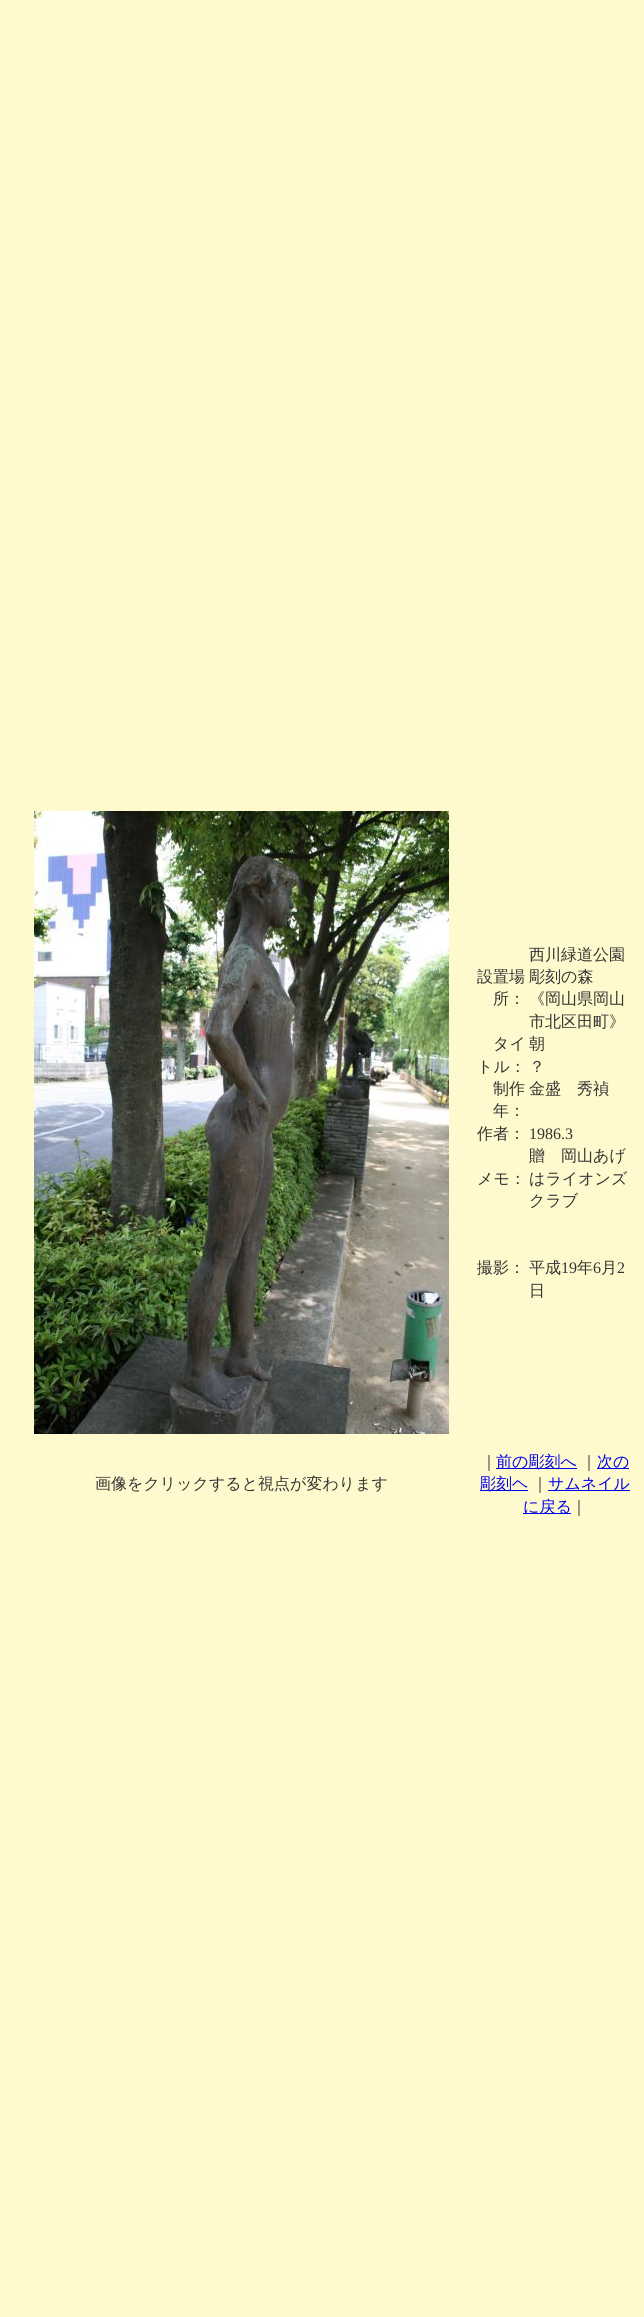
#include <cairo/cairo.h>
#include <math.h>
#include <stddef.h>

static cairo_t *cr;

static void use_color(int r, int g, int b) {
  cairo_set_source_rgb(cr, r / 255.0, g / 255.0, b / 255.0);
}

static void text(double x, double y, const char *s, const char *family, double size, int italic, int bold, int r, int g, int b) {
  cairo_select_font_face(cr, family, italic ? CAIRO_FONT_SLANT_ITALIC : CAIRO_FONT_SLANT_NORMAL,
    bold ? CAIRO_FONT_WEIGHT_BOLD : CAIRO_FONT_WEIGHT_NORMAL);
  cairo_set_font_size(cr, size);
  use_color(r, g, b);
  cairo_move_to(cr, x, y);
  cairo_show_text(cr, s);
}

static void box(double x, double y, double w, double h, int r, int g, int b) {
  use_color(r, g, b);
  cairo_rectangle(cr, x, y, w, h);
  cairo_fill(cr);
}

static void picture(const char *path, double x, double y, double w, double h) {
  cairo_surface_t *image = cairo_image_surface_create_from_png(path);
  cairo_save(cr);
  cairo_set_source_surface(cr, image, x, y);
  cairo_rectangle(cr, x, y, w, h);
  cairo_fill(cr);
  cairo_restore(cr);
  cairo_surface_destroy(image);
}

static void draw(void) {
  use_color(255, 250, 205);
  cairo_paint(cr);
  picture("img_01.png", 34, 811, 415, 623);
  box(496, 1468, 81, 1, 0, 0, 238);
  box(597, 1468, 32, 1, 0, 0, 238);
  box(480, 1490, 48, 1, 0, 0, 238);
  box(548, 1490, 82, 1, 0, 0, 238);
  box(523, 1513, 48, 1, 0, 0, 238);
  text(477, 982, "設置場", "WenQuanYi Zen Hei Medium", 16, 0, 0, 51, 51, 51);
  text(493, 1004, "所：", "WenQuanYi Zen Hei Medium", 16, 0, 0, 51, 51, 51);
  text(493, 1049, "タイ", "WenQuanYi Zen Hei Medium", 16, 0, 0, 51, 51, 51);
  text(477, 1072, "トル：", "WenQuanYi Zen Hei Medium", 16, 0, 0, 51, 51, 51);
  text(493, 1094, "制作", "WenQuanYi Zen Hei Medium", 16, 0, 0, 51, 51, 51);
  text(493, 1116, "年：", "WenQuanYi Zen Hei Medium", 16, 0, 0, 51, 51, 51);
  text(477, 1139, "作者：", "WenQuanYi Zen Hei Medium", 16, 0, 0, 51, 51, 51);
  text(477, 1184, "メモ：", "WenQuanYi Zen Hei Medium", 16, 0, 0, 51, 51, 51);
  text(477, 1273, "撮影：", "WenQuanYi Zen Hei Medium", 16, 0, 0, 51, 51, 51);
  text(529, 960, "西川緑道公園", "WenQuanYi Zen Hei Medium", 16, 0, 0, 51, 51, 51);
  text(529, 982, "彫刻の森", "WenQuanYi Zen Hei Medium", 16, 0, 0, 51, 51, 51);
  text(529, 1004, "《岡山県岡山", "WenQuanYi Zen Hei Medium", 16, 0, 0, 51, 51, 51);
  text(529, 1027, "市北区田町》", "WenQuanYi Zen Hei Medium", 16, 0, 0, 51, 51, 51);
  text(529, 1049, "朝", "WenQuanYi Zen Hei Medium", 16, 0, 0, 51, 51, 51);
  text(529, 1072, "？", "WenQuanYi Zen Hei Medium", 16, 0, 0, 51, 51, 51);
  text(529, 1094, "金盛　秀禎", "WenQuanYi Zen Hei Medium", 16, 0, 0, 51, 51, 51);
  text(529, 1139, "1986.3", "Liberation Serif", 16, 0, 0, 51, 51, 51);
  text(529, 1161, "贈　岡山あげ", "WenQuanYi Zen Hei Medium", 16, 0, 0, 51, 51, 51);
  text(529, 1184, "はライオンズ", "WenQuanYi Zen Hei Medium", 16, 0, 0, 51, 51, 51);
  text(529, 1206, "クラブ", "WenQuanYi Zen Hei Medium", 16, 0, 0, 51, 51, 51);
  text(529, 1273, "平成", "WenQuanYi Zen Hei Medium", 16, 0, 0, 51, 51, 51);
  text(561, 1273, "19", "Liberation Serif", 16, 0, 0, 51, 51, 51);
  text(577, 1273, "年", "WenQuanYi Zen Hei Medium", 16, 0, 0, 51, 51, 51);
  text(593, 1273, "6", "Liberation Serif", 16, 0, 0, 51, 51, 51);
  text(601, 1273, "月", "WenQuanYi Zen Hei Medium", 16, 0, 0, 51, 51, 51);
  text(617, 1273, "2", "Liberation Serif", 16, 0, 0, 51, 51, 51);
  text(529, 1296, "日", "WenQuanYi Zen Hei Medium", 16, 0, 0, 51, 51, 51);
  text(95, 1489, "画像をクリックすると視点が変わります", "WenQuanYi Zen Hei Medium", 16, 0, 0, 51, 51, 51);
  text(481, 1467, "｜", "WenQuanYi Zen Hei Medium", 16, 0, 0, 51, 51, 51);
  text(496, 1467, "前の彫刻へ", "WenQuanYi Zen Hei Medium", 16, 0, 0, 0, 0, 238);
  text(581, 1467, "｜", "WenQuanYi Zen Hei Medium", 16, 0, 0, 51, 51, 51);
  text(597, 1467, "次の", "WenQuanYi Zen Hei Medium", 16, 0, 0, 0, 0, 238);
  text(480, 1489, "彫刻ヘ", "WenQuanYi Zen Hei Medium", 16, 0, 0, 0, 0, 238);
  text(532, 1489, "｜", "WenQuanYi Zen Hei Medium", 16, 0, 0, 51, 51, 51);
  text(548, 1489, "サムネイル", "WenQuanYi Zen Hei Medium", 16, 0, 0, 0, 0, 238);
  text(523, 1512, "に戻る", "WenQuanYi Zen Hei Medium", 16, 0, 0, 0, 0, 238);
  text(571, 1512, "｜", "WenQuanYi Zen Hei Medium", 16, 0, 0, 51, 51, 51);
}

int main(void) {
  cairo_surface_t *surface = cairo_image_surface_create(CAIRO_FORMAT_RGB24, 644, 2317);
  cr = cairo_create(surface);
  cairo_font_options_t *options = cairo_font_options_create();
  cairo_font_options_set_hint_metrics(options, CAIRO_HINT_METRICS_OFF);
  cairo_font_options_set_hint_style(options, CAIRO_HINT_STYLE_NONE);
  cairo_set_font_options(cr, options);
  cairo_set_miter_limit(cr, 4);
  draw();
  cairo_surface_write_to_png(surface, "out.png");
  cairo_font_options_destroy(options);
  cairo_destroy(cr);
  cairo_surface_destroy(surface);
  return 0;
}
